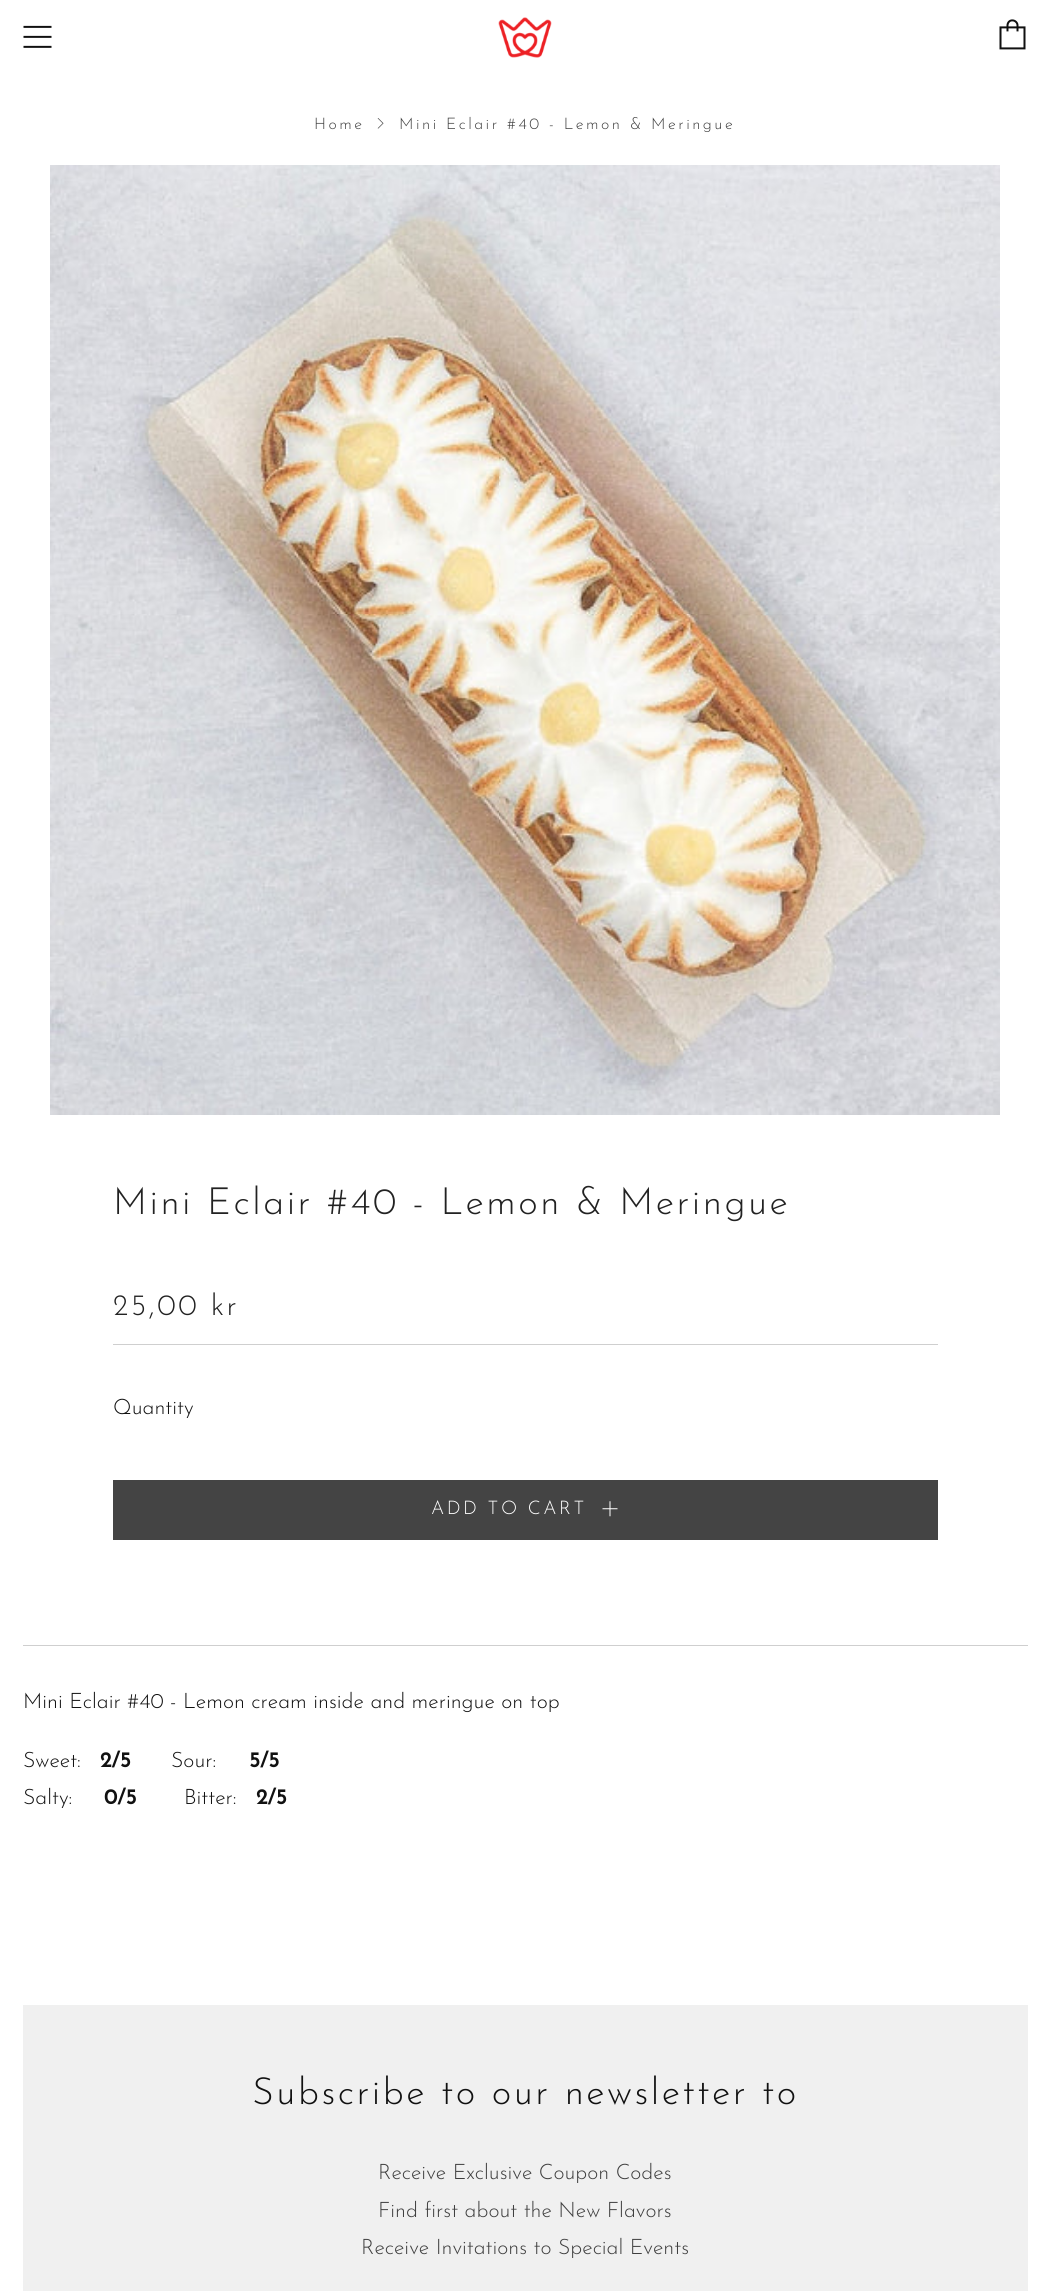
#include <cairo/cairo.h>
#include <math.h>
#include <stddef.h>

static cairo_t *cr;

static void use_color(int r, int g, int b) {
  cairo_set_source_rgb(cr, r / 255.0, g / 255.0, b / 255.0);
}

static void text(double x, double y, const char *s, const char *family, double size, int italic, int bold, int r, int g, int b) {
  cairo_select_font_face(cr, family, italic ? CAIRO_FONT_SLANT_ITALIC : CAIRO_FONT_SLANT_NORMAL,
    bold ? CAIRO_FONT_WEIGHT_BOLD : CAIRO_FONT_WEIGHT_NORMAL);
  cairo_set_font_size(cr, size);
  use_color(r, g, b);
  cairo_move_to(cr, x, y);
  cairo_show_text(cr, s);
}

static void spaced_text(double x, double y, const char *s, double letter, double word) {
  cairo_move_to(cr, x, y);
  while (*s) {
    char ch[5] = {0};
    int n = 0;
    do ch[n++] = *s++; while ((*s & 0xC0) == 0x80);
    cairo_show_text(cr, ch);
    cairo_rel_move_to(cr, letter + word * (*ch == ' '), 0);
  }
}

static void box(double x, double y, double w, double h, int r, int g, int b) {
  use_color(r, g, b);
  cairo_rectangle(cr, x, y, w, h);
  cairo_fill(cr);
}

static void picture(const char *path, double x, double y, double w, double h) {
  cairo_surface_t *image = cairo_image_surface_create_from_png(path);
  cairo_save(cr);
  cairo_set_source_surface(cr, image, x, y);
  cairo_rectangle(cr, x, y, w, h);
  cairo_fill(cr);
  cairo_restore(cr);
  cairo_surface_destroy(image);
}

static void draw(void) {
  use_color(255, 255, 255);
  cairo_paint(cr);
  picture("img_01.png", 23, 25, 29, 23);
  picture("img_02.png", 498, 17, 54, 41);
  picture("img_03.png", 999, 19, 27, 31);
  picture("img_04.png", 377, 118, 7, 11);
  picture("img_05.png", 50, 165, 950, 950);
  box(113, 1344, 825, 1, 207, 207, 207);
  box(113, 1480, 825, 60, 68, 68, 68);
  picture("img_06.png", 602, 1501, 16, 16);
  box(23, 1645, 1005, 1, 207, 207, 207);
  box(23, 2005, 1005, 286, 240, 240, 240);
  cairo_select_font_face(cr, "Josefin Sans Light", CAIRO_FONT_SLANT_NORMAL, CAIRO_FONT_WEIGHT_NORMAL);
  cairo_set_font_size(cr, 15.9);
  use_color(62, 62, 62);
  spaced_text(314, 129, "Home", 2.5, 0);
  spaced_text(399, 129, "Mini Eclair #40 - Lemon & Meringue", 2.5, 0);
  cairo_set_font_size(cr, 37.5);
  use_color(34, 34, 34);
  spaced_text(113, 1214, "Mini Eclair #40 - Lemon & Meringue", 2.5, 0);
  cairo_set_font_size(cr, 29.75);
  spaced_text(113, 1315, "25,00 kr", 2.5, 0);
  text(113, 1414, "Quantity", "Josefin Sans Light", 21.25, 0, 0, 17, 17, 17);
  cairo_set_font_size(cr, 18.75);
  use_color(255, 255, 255);
  spaced_text(431, 1514, "ADD TO CART", 2.5, 0);
  text(23, 1708, "Mini Eclair #40 - Lemon cream inside and meringue on top", "Josefin Sans Light", 21.25, 0, 0, 17, 17, 17);
  text(23, 1767, "Sweet:", "Josefin Sans Light", 21.25, 0, 0, 17, 17, 17);
  text(100, 1767, "2/5", "Josefin Sans", 21.25, 0, 1, 17, 17, 17);
  text(171, 1767, "Sour:", "Josefin Sans Light", 21.25, 0, 0, 17, 17, 17);
  text(249, 1767, "5/5", "Josefin Sans", 21.25, 0, 1, 17, 17, 17);
  text(23, 1804, "Salty:", "Josefin Sans Light", 21.25, 0, 0, 17, 17, 17);
  text(104, 1804, "0/5", "Josefin Sans", 21.25, 0, 1, 17, 17, 17);
  text(184, 1804, "Bitter:", "Josefin Sans Light", 21.25, 0, 0, 17, 17, 17);
  text(256, 1804, "2/5", "Josefin Sans", 21.25, 0, 1, 17, 17, 17);
  cairo_select_font_face(cr, "Josefin Sans Light", CAIRO_FONT_SLANT_NORMAL, CAIRO_FONT_WEIGHT_NORMAL);
  cairo_set_font_size(cr, 37.5);
  spaced_text(252, 2104, "Subscribe to our newsletter to", 2.5, 0);
  text(378, 2179, "Receive Exclusive Coupon Codes", "Josefin Sans Light", 21.25, 0, 0, 62, 62, 62);
  text(378, 2217, "Find first about the New Flavors", "Josefin Sans Light", 21.25, 0, 0, 62, 62, 62);
  text(361, 2254, "Receive Invitations to Special Events", "Josefin Sans Light", 21.25, 0, 0, 62, 62, 62);
}

int main(void) {
  cairo_surface_t *surface = cairo_image_surface_create(CAIRO_FORMAT_RGB24, 1049, 2291);
  cr = cairo_create(surface);
  cairo_font_options_t *options = cairo_font_options_create();
  cairo_font_options_set_hint_metrics(options, CAIRO_HINT_METRICS_OFF);
  cairo_font_options_set_hint_style(options, CAIRO_HINT_STYLE_NONE);
  cairo_set_font_options(cr, options);
  cairo_set_miter_limit(cr, 4);
  draw();
  cairo_surface_write_to_png(surface, "out.png");
  cairo_font_options_destroy(options);
  cairo_destroy(cr);
  cairo_surface_destroy(surface);
  return 0;
}
